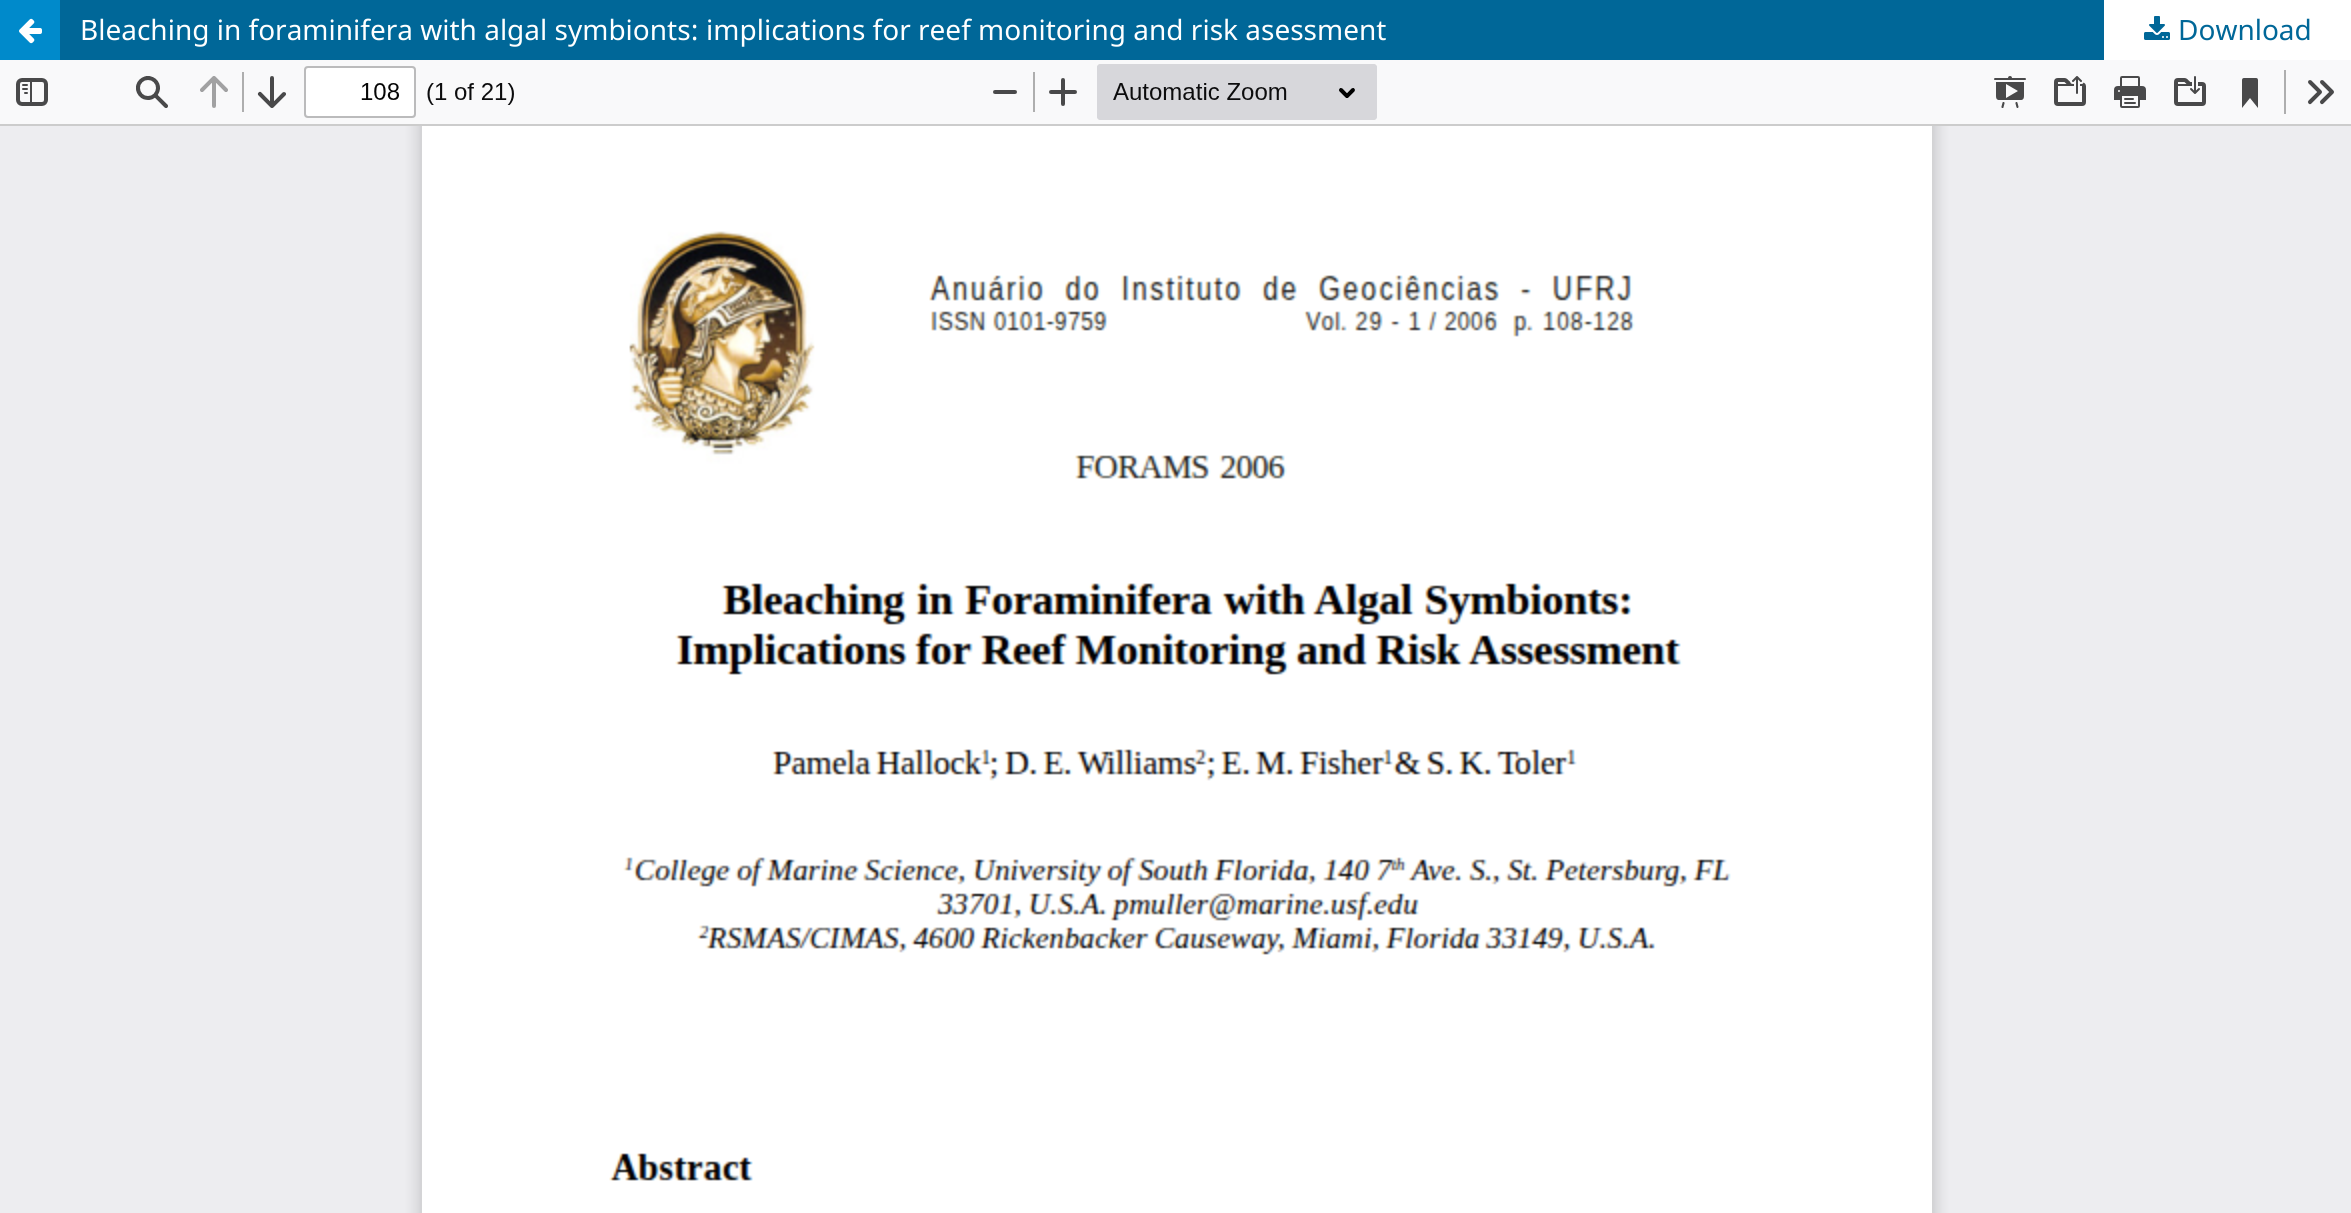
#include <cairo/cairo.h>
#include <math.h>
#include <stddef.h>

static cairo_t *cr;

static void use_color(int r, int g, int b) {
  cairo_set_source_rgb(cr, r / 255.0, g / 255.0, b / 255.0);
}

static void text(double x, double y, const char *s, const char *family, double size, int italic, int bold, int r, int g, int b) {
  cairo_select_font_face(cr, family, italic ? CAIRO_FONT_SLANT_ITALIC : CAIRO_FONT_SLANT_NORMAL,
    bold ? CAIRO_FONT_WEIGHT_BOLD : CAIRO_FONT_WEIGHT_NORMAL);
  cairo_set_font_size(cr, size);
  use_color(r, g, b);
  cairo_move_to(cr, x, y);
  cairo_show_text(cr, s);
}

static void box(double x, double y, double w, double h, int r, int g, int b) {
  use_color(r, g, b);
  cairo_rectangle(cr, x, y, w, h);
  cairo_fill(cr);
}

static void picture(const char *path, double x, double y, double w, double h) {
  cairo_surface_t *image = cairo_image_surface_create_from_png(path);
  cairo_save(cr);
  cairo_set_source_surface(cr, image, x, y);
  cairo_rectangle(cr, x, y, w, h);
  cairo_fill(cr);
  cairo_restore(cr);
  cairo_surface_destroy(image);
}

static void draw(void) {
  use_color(255, 255, 255);
  cairo_paint(cr);
  box(60, 0, 2044, 60, 0, 103, 152);
  box(0, 0, 60, 60, 0, 138, 203);
  picture("img_01.png", 19, 18, 23, 26);
  picture("img_02.png", 2144, 16, 26, 24);
  picture("img_03.png", 0, 60, 2351, 1153);
  text(80, 40, "Bleaching in foraminifera with algal symbionts: implications for reef monitoring and risk asessment", "Noto Sans", 28, 0, 0, 255, 255, 255);
  text(2178, 40, "Download", "Noto Sans", 28, 0, 0, 0, 103, 152);
}

int main(void) {
  cairo_surface_t *surface = cairo_image_surface_create(CAIRO_FORMAT_RGB24, 2351, 1213);
  cr = cairo_create(surface);
  cairo_font_options_t *options = cairo_font_options_create();
  cairo_font_options_set_hint_metrics(options, CAIRO_HINT_METRICS_OFF);
  cairo_font_options_set_hint_style(options, CAIRO_HINT_STYLE_NONE);
  cairo_set_font_options(cr, options);
  cairo_set_miter_limit(cr, 4);
  draw();
  cairo_surface_write_to_png(surface, "out.png");
  cairo_font_options_destroy(options);
  cairo_destroy(cr);
  cairo_surface_destroy(surface);
  return 0;
}
